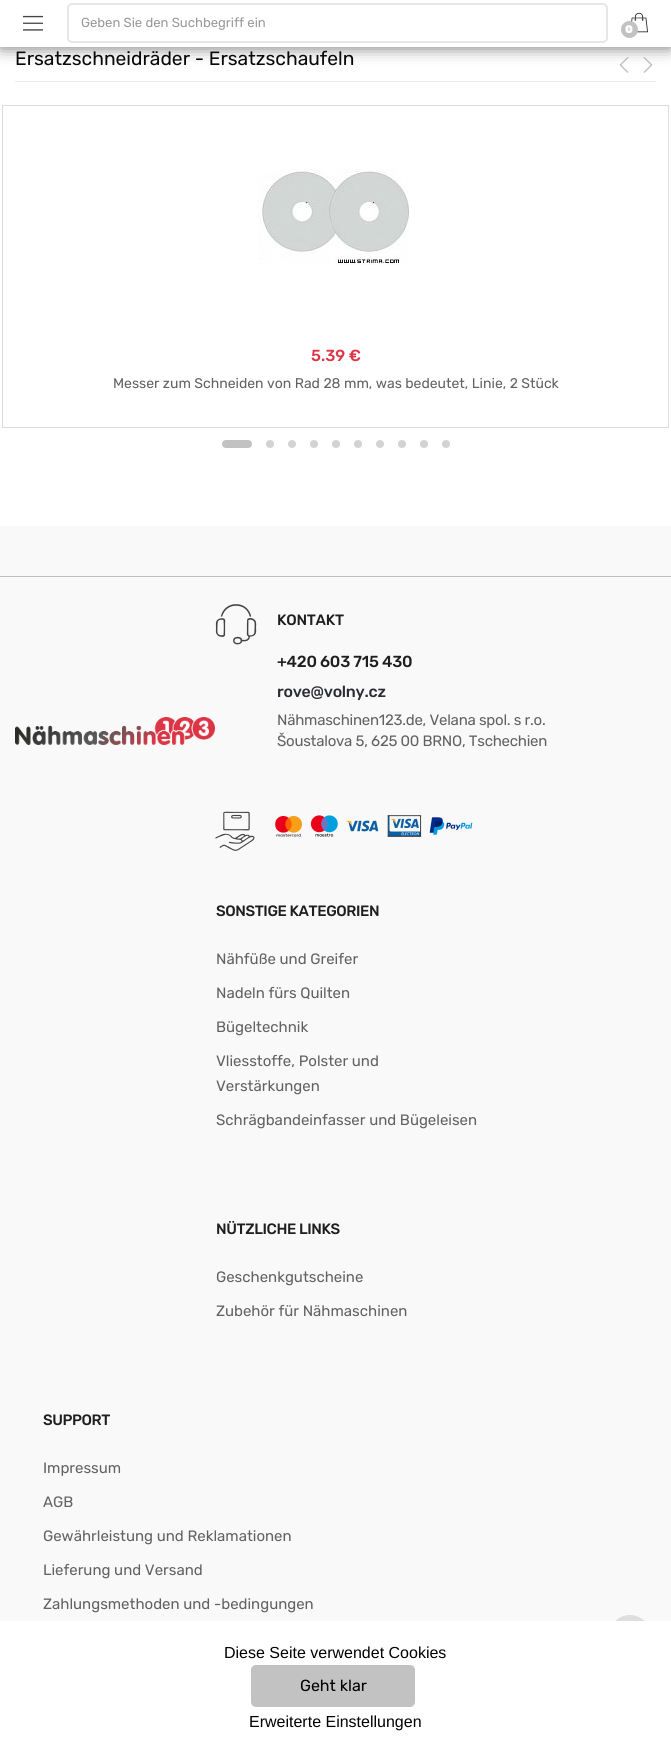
#include <cairo/cairo.h>
#include <math.h>
#include <stddef.h>

static cairo_t *cr;

static void use_color(int r, int g, int b) {
  cairo_set_source_rgb(cr, r / 255.0, g / 255.0, b / 255.0);
}

static void text(double x, double y, const char *s, const char *family, double size, int italic, int bold, int r, int g, int b) {
  cairo_select_font_face(cr, family, italic ? CAIRO_FONT_SLANT_ITALIC : CAIRO_FONT_SLANT_NORMAL,
    bold ? CAIRO_FONT_WEIGHT_BOLD : CAIRO_FONT_WEIGHT_NORMAL);
  cairo_set_font_size(cr, size);
  use_color(r, g, b);
  cairo_move_to(cr, x, y);
  cairo_show_text(cr, s);
}

static void spaced_text(double x, double y, const char *s, double letter, double word) {
  cairo_move_to(cr, x, y);
  while (*s) {
    char ch[5] = {0};
    int n = 0;
    do ch[n++] = *s++; while ((*s & 0xC0) == 0x80);
    cairo_show_text(cr, ch);
    cairo_rel_move_to(cr, letter + word * (*ch == ' '), 0);
  }
}

static void box(double x, double y, double w, double h, int r, int g, int b) {
  use_color(r, g, b);
  cairo_rectangle(cr, x, y, w, h);
  cairo_fill(cr);
}

static void round_rect(double x, double y, double w, double h, double r) {
  cairo_new_sub_path(cr);
  cairo_arc(cr, x + w - r, y + h - r, r, 0, M_PI / 2);
  cairo_arc(cr, x + r, y + h - r, r, M_PI / 2, M_PI);
  cairo_arc(cr, x + r, y + r, r, M_PI, 1.5 * M_PI);
  cairo_arc(cr, x + w - r, y + r, r, 1.5 * M_PI, 2 * M_PI);
  cairo_close_path(cr);
}

static void shadow(double x, double y, double w, double h, double r, double blur, double alpha) {
  cairo_push_group_with_content(cr, CAIRO_CONTENT_ALPHA);
  cairo_set_operator(cr, CAIRO_OPERATOR_SOURCE);
  for (int i = 15; i >= -15 && fmin(w, h) + blur * i / 3 > 0; i -= 2) {
    double e = blur * i / 6;
    cairo_set_source_rgba(cr, 0, 0, 0, alpha * erfc((i - 1) / 8.5) / 2);
    round_rect(x - e, y - e, w + 2 * e, h + 2 * e, fmax(0, fmin(r + e + blur * .6, fmin(w, h) / 2 + e)));
    cairo_fill(cr);
  }
  cairo_pattern_t *soft = cairo_pop_group(cr);
  cairo_mask(cr, soft);
  cairo_pattern_destroy(soft);
}

static void picture(const char *path, double x, double y, double w, double h) {
  cairo_surface_t *image = cairo_image_surface_create_from_png(path);
  cairo_save(cr);
  cairo_set_source_surface(cr, image, x, y);
  cairo_rectangle(cr, x, y, w, h);
  cairo_fill(cr);
  cairo_restore(cr);
  cairo_surface_destroy(image);
}

static void draw(void) {
  use_color(255, 255, 255);
  cairo_paint(cr);
  picture("img_03.png", 619, 57, 10, 16);
  picture("img_04.png", 643, 57, 10, 16);
  use_color(0, 0, 0);
  shadow(1, 1, 669, 45, 0, 8.5, 0.66);
  box(0, 0, 671, 47, 255, 255, 255);
  picture("img_01.png", 23, 15, 20, 16);
  round_rect(68, 4, 539, 38, 4);
  use_color(231, 231, 231);
  cairo_stroke(cr);
  picture("img_02.png", 631, 12, 17, 21);
  use_color(194, 194, 194);
  cairo_arc(cr, 629.5, 29.5, 8.5, 0, 2 * M_PI);
  cairo_fill(cr);
  box(15, 81, 641, 1, 235, 235, 235);
  cairo_rectangle(cr, 2.5, 105.5, 666, 322);
  use_color(221, 221, 221);
  cairo_set_line_width(cr, 1);
  cairo_stroke(cr);
  picture("img_05.png", 258, 169, 151, 96);
  use_color(194, 194, 194);
  round_rect(222, 440, 30, 8, 4);
  cairo_fill(cr);
  use_color(211, 211, 211);
  cairo_arc(cr, 270, 444, 4, 0, 2 * M_PI);
  cairo_fill(cr);
  cairo_arc(cr, 292, 444, 4, 0, 2 * M_PI);
  cairo_fill(cr);
  cairo_arc(cr, 314, 444, 4, 0, 2 * M_PI);
  cairo_fill(cr);
  cairo_arc(cr, 336, 444, 4, 0, 2 * M_PI);
  cairo_fill(cr);
  cairo_arc(cr, 358, 444, 4, 0, 2 * M_PI);
  cairo_fill(cr);
  cairo_arc(cr, 380, 444, 4, 0, 2 * M_PI);
  cairo_fill(cr);
  cairo_arc(cr, 402, 444, 4, 0, 2 * M_PI);
  cairo_fill(cr);
  cairo_arc(cr, 424, 444, 4, 0, 2 * M_PI);
  cairo_fill(cr);
  cairo_arc(cr, 446, 444, 4, 0, 2 * M_PI);
  cairo_fill(cr);
  box(0, 526, 671, 1095, 249, 249, 249);
  box(0, 576, 671, 1, 190, 190, 190);
  picture("img_06.png", 15, 717, 200, 28);
  picture("img_07.png", 215, 604, 42, 41);
  picture("img_08.png", 215, 811, 40, 40);
  picture("img_09.png", 275, 815, 198, 22);
  use_color(222, 222, 222);
  cairo_arc(cr, 630, 1636, 21, 0, 2 * M_PI);
  cairo_fill(cr);
  box(609, 1621, 42, 36, 255, 255, 255);
  use_color(194, 194, 194);
  round_rect(251, 1665, 164, 42, 5);
  cairo_fill(cr);
  text(81, 27, "Geben Sie den Suchbegriff ein", "Rubik", 13.1, 0, 0, 153, 153, 153);
  text(625, 33, "0", "Rubik Black", 11, 0, 0, 255, 255, 255);
  text(15, 65, "Ersatzschneidräder - Ersatzschaufeln", "Rubik", 19.25, 0, 0, 9, 9, 9);
  text(311, 361, "5.39 €", "Rubik Medium", 16, 0, 0, 220, 53, 69);
  text(113, 388, "Messer zum Schneiden von Rad 28 mm, was bedeutet, Linie, 2 Stück", "Rubik", 14, 0, 0, 98, 98, 98);
  cairo_select_font_face(cr, "Rubik Medium", CAIRO_FONT_SLANT_NORMAL, CAIRO_FONT_WEIGHT_NORMAL);
  cairo_set_font_size(cr, 15);
  use_color(31, 31, 31);
  spaced_text(277, 625, "KONTAKT", -0.25, 0);
  cairo_set_font_size(cr, 16);
  spaced_text(277, 667, "+420 603 715 430", -0.25, 0);
  use_color(44, 45, 51);
  spaced_text(277, 697, "rove@volny.cz", -0.25, 0);
  cairo_select_font_face(cr, "Rubik", CAIRO_FONT_SLANT_NORMAL, CAIRO_FONT_WEIGHT_NORMAL);
  cairo_set_font_size(cr, 15);
  use_color(98, 98, 98);
  spaced_text(277, 725, "Nähmaschinen123.de, Velana spol. s r.o.", -0.25, 0);
  spaced_text(277, 746, "Šoustalova 5, 625 00 BRNO, Tschechien", -0.25, 0);
  cairo_select_font_face(cr, "Rubik Medium", CAIRO_FONT_SLANT_NORMAL, CAIRO_FONT_WEIGHT_NORMAL);
  use_color(31, 31, 31);
  spaced_text(216, 916, "SONSTIGE KATEGORIEN", -0.4, 0);
  text(216, 964, "Nähfüße und Greifer", "Rubik", 15, 0, 0, 98, 98, 98);
  text(216, 998, "Nadeln fürs Quilten", "Rubik", 15, 0, 0, 98, 98, 98);
  text(216, 1032, "Bügeltechnik", "Rubik", 15, 0, 0, 98, 98, 98);
  text(216, 1066, "Vliesstoffe, Polster und", "Rubik", 15, 0, 0, 98, 98, 98);
  text(216, 1091, "Verstärkungen", "Rubik", 15, 0, 0, 98, 98, 98);
  text(216, 1125, "Schrägbandeinfasser und Bügeleisen", "Rubik", 15, 0, 0, 98, 98, 98);
  cairo_select_font_face(cr, "Rubik Medium", CAIRO_FONT_SLANT_NORMAL, CAIRO_FONT_WEIGHT_NORMAL);
  use_color(31, 31, 31);
  spaced_text(216, 1234, "NÜTZLICHE LINKS", -0.4, 0);
  text(216, 1282, "Geschenkgutscheine", "Rubik", 15, 0, 0, 98, 98, 98);
  text(216, 1316, "Zubehör für Nähmaschinen", "Rubik", 15, 0, 0, 98, 98, 98);
  cairo_select_font_face(cr, "Rubik Medium", CAIRO_FONT_SLANT_NORMAL, CAIRO_FONT_WEIGHT_NORMAL);
  use_color(31, 31, 31);
  spaced_text(43, 1425, "SUPPORT", -0.4, 0);
  text(43, 1473, "Impressum", "Rubik", 15, 0, 0, 98, 98, 98);
  text(43, 1507, "AGB", "Rubik", 15, 0, 0, 98, 98, 98);
  text(43, 1541, "Gewährleistung und Reklamationen", "Rubik", 15, 0, 0, 98, 98, 98);
  text(43, 1575, "Lieferung und Versand", "Rubik", 15, 0, 0, 98, 98, 98);
  text(43, 1609, "Zahlungsmethoden und -bedingungen", "Rubik", 15, 0, 0, 98, 98, 98);
  text(224, 1658, "Diese Seite verwendet Cookies", "Liberation Sans", 16, 0, 0, 0, 0, 0);
  text(300, 1691, "Geht klar", "Rubik", 16, 0, 0, 0, 0, 0);
  text(249, 1727, "Erweiterte Einstellungen", "Liberation Sans", 16, 0, 0, 0, 0, 0);
}

int main(void) {
  cairo_surface_t *surface = cairo_image_surface_create(CAIRO_FORMAT_RGB24, 671, 1757);
  cr = cairo_create(surface);
  cairo_font_options_t *options = cairo_font_options_create();
  cairo_font_options_set_hint_metrics(options, CAIRO_HINT_METRICS_OFF);
  cairo_font_options_set_hint_style(options, CAIRO_HINT_STYLE_NONE);
  cairo_set_font_options(cr, options);
  cairo_set_miter_limit(cr, 4);
  draw();
  cairo_surface_write_to_png(surface, "out.png");
  cairo_font_options_destroy(options);
  cairo_destroy(cr);
  cairo_surface_destroy(surface);
  return 0;
}
